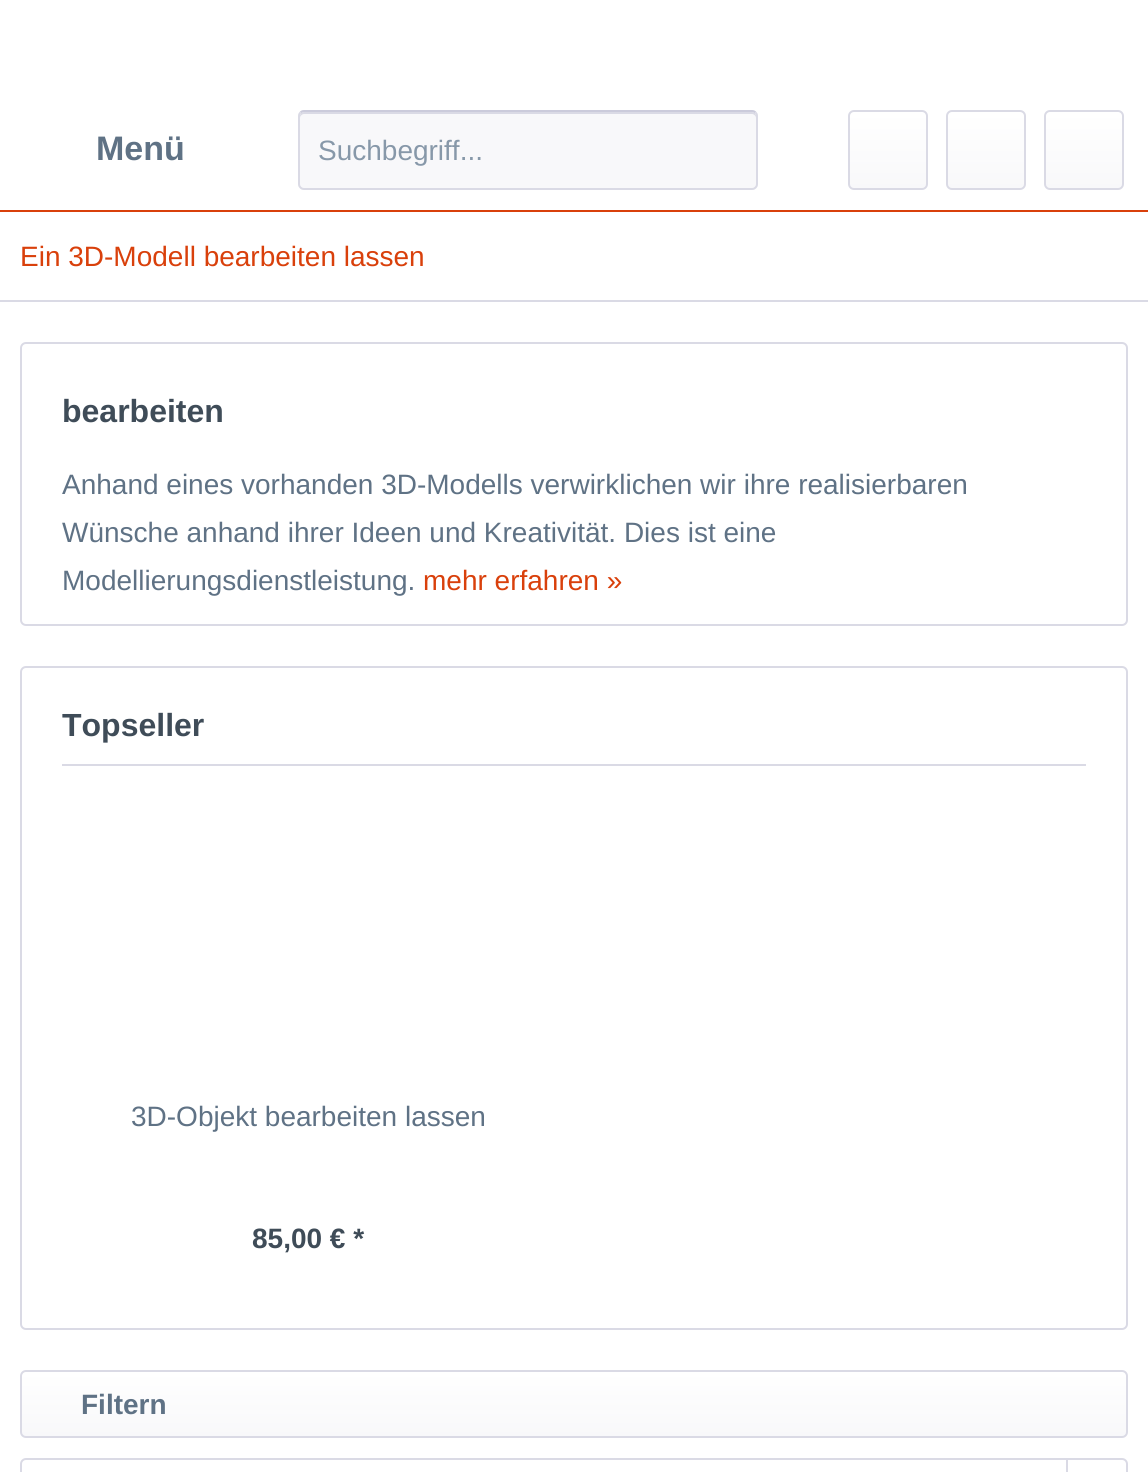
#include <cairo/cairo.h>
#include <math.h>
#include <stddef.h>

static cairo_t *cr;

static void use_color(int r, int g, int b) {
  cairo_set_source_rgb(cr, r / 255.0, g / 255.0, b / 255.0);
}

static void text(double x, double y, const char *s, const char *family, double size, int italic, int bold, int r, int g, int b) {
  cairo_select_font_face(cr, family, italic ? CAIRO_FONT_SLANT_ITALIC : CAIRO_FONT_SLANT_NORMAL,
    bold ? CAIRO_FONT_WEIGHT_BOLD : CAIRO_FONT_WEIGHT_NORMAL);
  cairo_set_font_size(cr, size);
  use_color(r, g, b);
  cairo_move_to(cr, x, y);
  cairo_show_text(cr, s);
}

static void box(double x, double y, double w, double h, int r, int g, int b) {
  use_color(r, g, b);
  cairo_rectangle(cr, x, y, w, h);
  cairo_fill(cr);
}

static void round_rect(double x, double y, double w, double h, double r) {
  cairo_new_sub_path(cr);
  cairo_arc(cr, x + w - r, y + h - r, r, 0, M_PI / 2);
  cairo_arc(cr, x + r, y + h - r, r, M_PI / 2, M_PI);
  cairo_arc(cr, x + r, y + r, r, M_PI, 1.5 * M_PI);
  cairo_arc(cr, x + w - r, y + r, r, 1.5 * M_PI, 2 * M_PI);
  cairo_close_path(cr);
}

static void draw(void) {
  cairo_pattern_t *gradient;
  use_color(255, 255, 255);
  cairo_paint(cr);
  box(0, 210, 1148, 2, 217, 64, 11);
  use_color(248, 248, 250);
  round_rect(298, 110, 460, 80, 6);
  cairo_fill(cr);
  use_color(218, 218, 229);
  cairo_new_path(cr);
  cairo_move_to(cr, 304, 114);
  cairo_line_to(cr, 752, 114);
  cairo_curve_to(cr, 754, 114, 756, 116, 756, 118);
  cairo_curve_to(cr, 756, 115, 756, 112, 752, 112);
  cairo_line_to(cr, 304, 112);
  cairo_curve_to(cr, 300, 112, 300, 115, 300, 118);
  cairo_curve_to(cr, 300, 116, 302, 114, 304, 114);
  cairo_close_path(cr);
  cairo_fill(cr);
  cairo_new_path(cr);
  cairo_move_to(cr, 300.5, 112.5);
  cairo_curve_to(cr, 301.5, 111.5, 302.5, 111, 304, 111);
  cairo_line_to(cr, 752, 111);
  cairo_curve_to(cr, 753.5, 111, 754.5, 111.5, 755.5, 112.5);
  use_color(203, 203, 219);
  cairo_stroke(cr);
  cairo_new_path(cr);
  cairo_move_to(cr, 755.5, 112.5);
  cairo_curve_to(cr, 756.5, 113.5, 757, 114.5, 757, 116);
  cairo_line_to(cr, 757, 184);
  cairo_curve_to(cr, 757, 185.5, 756.5, 186.5, 755.5, 187.5);
  cairo_curve_to(cr, 754.5, 188.5, 753.5, 189, 752, 189);
  cairo_line_to(cr, 304, 189);
  cairo_curve_to(cr, 302.5, 189, 301.5, 188.5, 300.5, 187.5);
  cairo_curve_to(cr, 299.5, 186.5, 299, 185.5, 299, 184);
  cairo_line_to(cr, 299, 116);
  cairo_curve_to(cr, 299, 114.5, 299.5, 113.5, 300.5, 112.5);
  use_color(218, 218, 229);
  cairo_stroke(cr);
  gradient = cairo_pattern_create_linear(888, 112, 888, 188);
  cairo_pattern_add_color_stop_rgba(gradient, 0, 1, 1, 1, 1);
  cairo_pattern_add_color_stop_rgba(gradient, 1, 0.973, 0.973, 0.98, 1);
  cairo_set_source(cr, gradient);
  cairo_pattern_destroy(gradient);
  round_rect(850, 112, 76, 76, 4);
  cairo_fill(cr);
  round_rect(849, 111, 78, 78, 5);
  use_color(218, 218, 229);
  cairo_stroke(cr);
  gradient = cairo_pattern_create_linear(986, 112, 986, 188);
  cairo_pattern_add_color_stop_rgba(gradient, 0, 1, 1, 1, 1);
  cairo_pattern_add_color_stop_rgba(gradient, 1, 0.973, 0.973, 0.98, 1);
  cairo_set_source(cr, gradient);
  cairo_pattern_destroy(gradient);
  round_rect(948, 112, 76, 76, 4);
  cairo_fill(cr);
  round_rect(947, 111, 78, 78, 5);
  use_color(218, 218, 229);
  cairo_stroke(cr);
  gradient = cairo_pattern_create_linear(1084, 112, 1084, 188);
  cairo_pattern_add_color_stop_rgba(gradient, 0, 1, 1, 1, 1);
  cairo_pattern_add_color_stop_rgba(gradient, 1, 0.973, 0.973, 0.98, 1);
  cairo_set_source(cr, gradient);
  cairo_pattern_destroy(gradient);
  round_rect(1046, 112, 76, 76, 4);
  cairo_fill(cr);
  round_rect(1045, 111, 78, 78, 5);
  use_color(218, 218, 229);
  cairo_stroke(cr);
  box(0, 300, 1148, 2, 218, 218, 229);
  round_rect(21, 343, 1106, 282, 5);
  cairo_stroke(cr);
  round_rect(21, 667, 1106, 662, 5);
  cairo_stroke(cr);
  box(62, 764, 1024, 2, 218, 218, 229);
  gradient = cairo_pattern_create_linear(574, 1372, 574, 1436);
  cairo_pattern_add_color_stop_rgba(gradient, 0, 1, 1, 1, 1);
  cairo_pattern_add_color_stop_rgba(gradient, 1, 0.973, 0.973, 0.98, 1);
  cairo_set_source(cr, gradient);
  cairo_pattern_destroy(gradient);
  round_rect(22, 1372, 1104, 64, 4);
  cairo_fill(cr);
  round_rect(21, 1371, 1106, 66, 5);
  use_color(218, 218, 229);
  cairo_stroke(cr);
  round_rect(21, 1459, 1106, 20, 5);
  cairo_stroke(cr);
  box(1066, 1460, 2, 12, 218, 218, 229);
  text(96, 160, "Menü", "Liberation Sans", 34, 0, 1, 95, 114, 133);
  text(318, 160, "Suchbegriff...", "Liberation Sans", 28, 0, 0, 135, 152, 169);
  text(20, 266, "Ein 3D-Modell bearbeiten lassen", "Liberation Sans", 28, 0, 0, 217, 64, 11);
  text(62, 422, "bearbeiten", "Liberation Sans", 32, 0, 1, 63, 76, 88);
  text(62, 494, "Anhand eines vorhanden 3D-Modells verwirklichen wir ihre realisierbaren", "Liberation Sans", 28, 0, 0, 95, 114, 133);
  text(62, 542, "Wünsche anhand ihrer Ideen und Kreativität. Dies ist eine", "Liberation Sans", 28, 0, 0, 95, 114, 133);
  text(62, 590, "Modellierungsdienstleistung.", "Liberation Sans", 28, 0, 0, 95, 114, 133);
  text(423, 590, "mehr erfahren »", "Liberation Sans", 28, 0, 0, 217, 64, 11);
  text(62, 736, "Topseller", "Liberation Sans", 32, 0, 1, 63, 76, 88);
  text(131, 1126, "3D-Objekt bearbeiten lassen", "Liberation Sans", 28, 0, 0, 95, 114, 133);
  text(252, 1248, "85,00 € *", "Liberation Sans", 28, 0, 1, 63, 76, 88);
  text(81, 1414, "Filtern", "Liberation Sans", 28, 0, 1, 95, 114, 133);
}

int main(void) {
  cairo_surface_t *surface = cairo_image_surface_create(CAIRO_FORMAT_RGB24, 1148, 1472);
  cr = cairo_create(surface);
  cairo_font_options_t *options = cairo_font_options_create();
  cairo_font_options_set_hint_metrics(options, CAIRO_HINT_METRICS_OFF);
  cairo_font_options_set_hint_style(options, CAIRO_HINT_STYLE_NONE);
  cairo_set_font_options(cr, options);
  cairo_set_miter_limit(cr, 4);
  draw();
  cairo_surface_write_to_png(surface, "out.png");
  cairo_font_options_destroy(options);
  cairo_destroy(cr);
  cairo_surface_destroy(surface);
  return 0;
}
